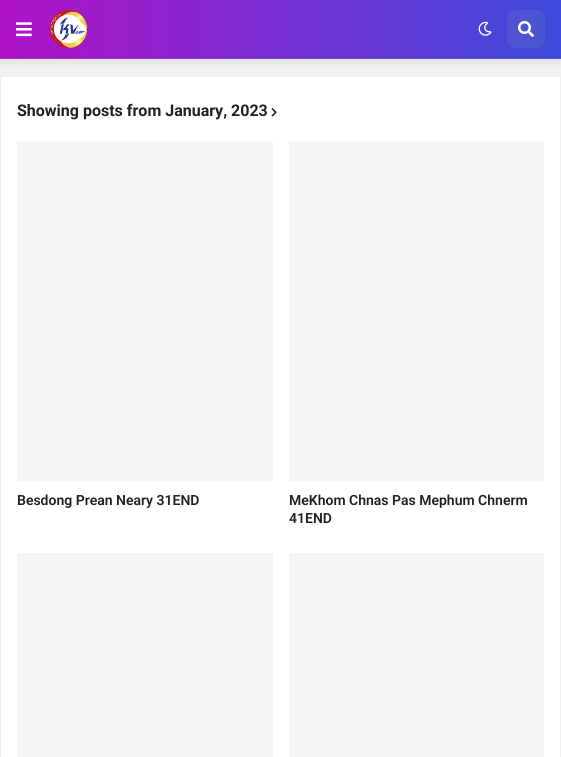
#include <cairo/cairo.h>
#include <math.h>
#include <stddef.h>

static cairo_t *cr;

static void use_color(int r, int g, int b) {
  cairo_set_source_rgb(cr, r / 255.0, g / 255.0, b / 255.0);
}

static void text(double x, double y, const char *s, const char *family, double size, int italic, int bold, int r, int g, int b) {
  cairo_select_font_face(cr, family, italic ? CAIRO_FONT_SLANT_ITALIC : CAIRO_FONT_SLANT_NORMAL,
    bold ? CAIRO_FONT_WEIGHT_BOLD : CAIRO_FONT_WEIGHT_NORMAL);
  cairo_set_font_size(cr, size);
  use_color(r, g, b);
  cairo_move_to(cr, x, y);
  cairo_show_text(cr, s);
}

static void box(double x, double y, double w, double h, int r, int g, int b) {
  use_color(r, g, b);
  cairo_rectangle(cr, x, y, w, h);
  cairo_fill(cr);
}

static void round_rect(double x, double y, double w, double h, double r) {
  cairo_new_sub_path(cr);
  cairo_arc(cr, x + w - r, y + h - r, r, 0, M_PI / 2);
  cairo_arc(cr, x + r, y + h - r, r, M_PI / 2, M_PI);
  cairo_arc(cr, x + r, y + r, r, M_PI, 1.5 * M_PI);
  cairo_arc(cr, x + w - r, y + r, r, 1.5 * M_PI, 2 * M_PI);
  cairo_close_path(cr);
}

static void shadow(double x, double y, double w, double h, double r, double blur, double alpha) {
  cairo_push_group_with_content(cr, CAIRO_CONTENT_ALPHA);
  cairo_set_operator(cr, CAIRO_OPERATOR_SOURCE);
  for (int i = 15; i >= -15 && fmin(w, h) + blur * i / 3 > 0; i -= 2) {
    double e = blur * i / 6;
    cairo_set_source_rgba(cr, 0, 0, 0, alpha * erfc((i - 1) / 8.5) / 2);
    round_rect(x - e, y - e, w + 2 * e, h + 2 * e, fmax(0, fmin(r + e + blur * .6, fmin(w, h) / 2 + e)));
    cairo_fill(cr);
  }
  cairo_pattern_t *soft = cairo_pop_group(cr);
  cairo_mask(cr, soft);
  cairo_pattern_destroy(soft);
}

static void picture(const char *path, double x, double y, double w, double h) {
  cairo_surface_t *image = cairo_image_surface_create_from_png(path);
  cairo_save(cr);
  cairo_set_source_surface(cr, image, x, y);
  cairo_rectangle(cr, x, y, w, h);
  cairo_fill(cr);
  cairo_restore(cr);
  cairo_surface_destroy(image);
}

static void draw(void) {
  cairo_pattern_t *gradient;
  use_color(240, 240, 240);
  cairo_paint(cr);
  use_color(12, 0, 46);
  shadow(0, 4, 561, 59, 0, 3, 0.06);
  gradient = cairo_pattern_create_linear(0, 29, 561, 29);
  cairo_pattern_add_color_stop_rgba(gradient, 0, 0.694, 0.071, 0.784, 1);
  cairo_pattern_add_color_stop_rgba(gradient, 1, 0.239, 0.294, 0.855, 1);
  cairo_set_source(cr, gradient);
  cairo_pattern_destroy(gradient);
  cairo_rectangle(cr, 0, 0, 561, 58);
  cairo_fill(cr);
  gradient = cairo_pattern_create_linear(0, 29, 561, 29);
  cairo_pattern_add_color_stop_rgba(gradient, 0, 0.682, 0.153, 0.757, 1);
  cairo_pattern_add_color_stop_rgba(gradient, 1, 0.294, 0.341, 0.82, 1);
  cairo_set_source(cr, gradient);
  cairo_pattern_destroy(gradient);
  cairo_rectangle(cr, 0, 58, 561, 1);
  cairo_fill(cr);
  picture("img_01.png", 16, 22, 16, 15);
  picture("img_02.png", 48, 9, 40, 40);
  picture("img_03.png", 478, 21, 14, 15);
  cairo_set_source_rgba(cr, 0.608, 0.667, 0.686, 0.12);
  round_rect(507, 10, 38, 38, 8);
  cairo_fill(cr);
  picture("img_04.png", 518, 21, 16, 16);
  use_color(255, 255, 255);
  round_rect(0, 75, 561, 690, 8);
  cairo_fill(cr);
  round_rect(0.5, 75.5, 560, 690, 7.5);
  cairo_set_source_rgba(cr, 0.608, 0.608, 0.608, 0.15);
  cairo_set_line_width(cr, 1);
  cairo_stroke(cr);
  box(1, 77, 559, 5, 255, 255, 255);
  box(1, 76, 559, 1, 240, 240, 240);
  picture("img_05.png", 271, 108, 6, 9);
  box(17, 141, 256, 340, 243, 245, 246);
  box(289, 141, 255, 340, 243, 245, 246);
  box(17, 553, 256, 204, 243, 245, 245);
  box(289, 553, 255, 204, 243, 245, 245);
  text(17, 116, "Showing posts from January, 2023", "Roboto", 16, 0, 1, 32, 33, 36);
  text(17, 505, "Besdong Prean Neary 31END", "Roboto SemiBold", 14, 0, 0, 32, 33, 36);
  text(289, 505, "MeKhom Chnas Pas Mephum Chnerm", "Roboto SemiBold", 14, 0, 0, 32, 33, 36);
  text(289, 523, "41END", "Roboto SemiBold", 14, 0, 0, 32, 33, 36);
}

int main(void) {
  cairo_surface_t *surface = cairo_image_surface_create(CAIRO_FORMAT_RGB24, 561, 757);
  cr = cairo_create(surface);
  cairo_font_options_t *options = cairo_font_options_create();
  cairo_font_options_set_hint_metrics(options, CAIRO_HINT_METRICS_OFF);
  cairo_font_options_set_hint_style(options, CAIRO_HINT_STYLE_NONE);
  cairo_set_font_options(cr, options);
  cairo_set_miter_limit(cr, 4);
  draw();
  cairo_surface_write_to_png(surface, "out.png");
  cairo_font_options_destroy(options);
  cairo_destroy(cr);
  cairo_surface_destroy(surface);
  return 0;
}
